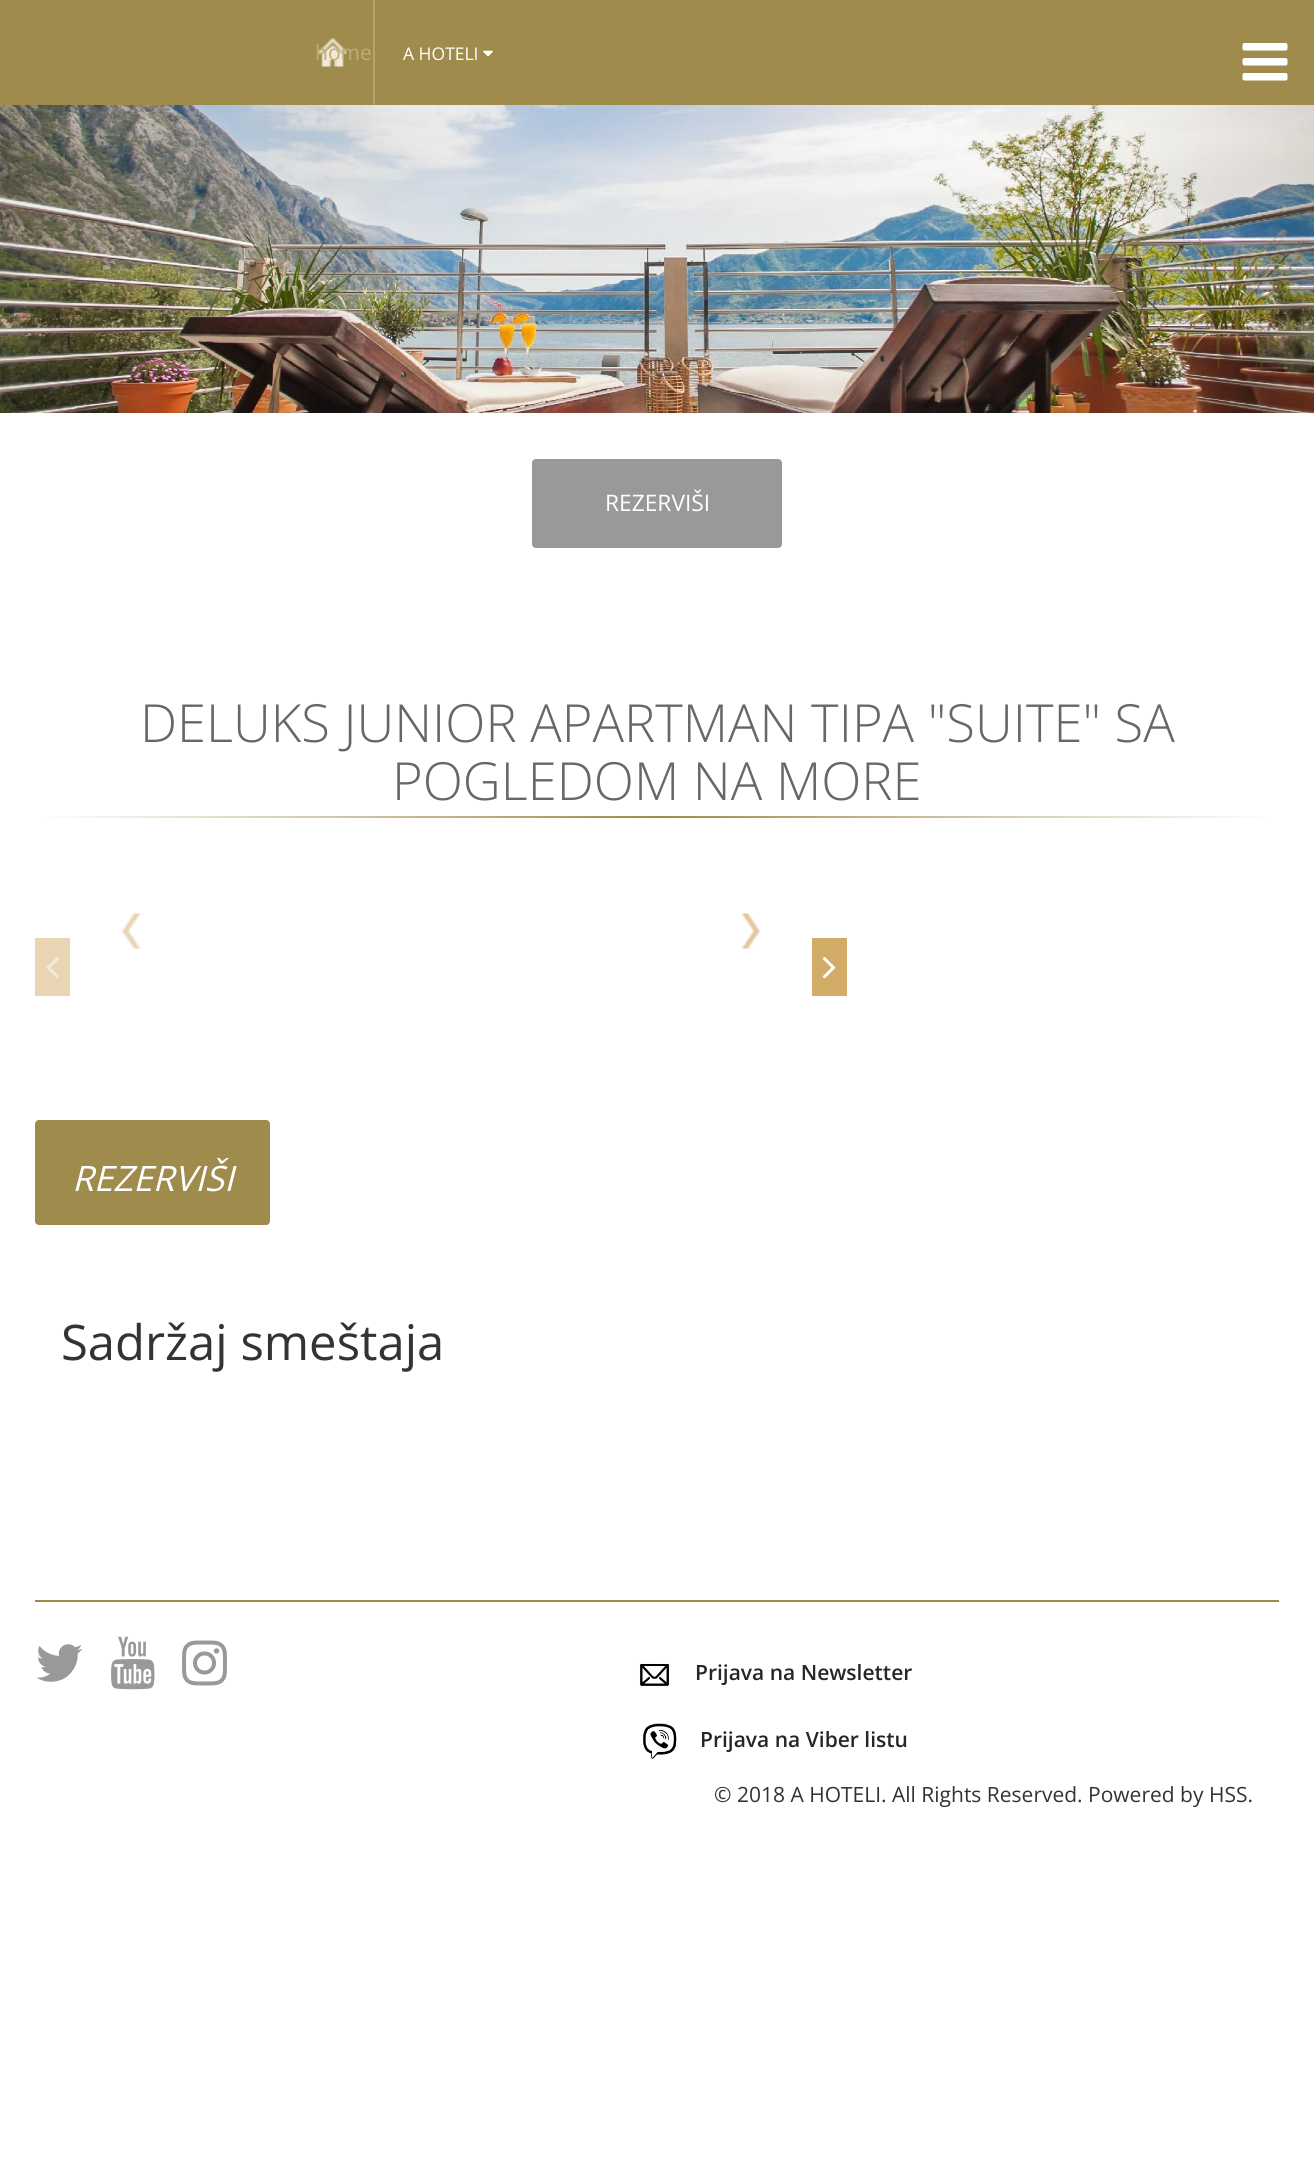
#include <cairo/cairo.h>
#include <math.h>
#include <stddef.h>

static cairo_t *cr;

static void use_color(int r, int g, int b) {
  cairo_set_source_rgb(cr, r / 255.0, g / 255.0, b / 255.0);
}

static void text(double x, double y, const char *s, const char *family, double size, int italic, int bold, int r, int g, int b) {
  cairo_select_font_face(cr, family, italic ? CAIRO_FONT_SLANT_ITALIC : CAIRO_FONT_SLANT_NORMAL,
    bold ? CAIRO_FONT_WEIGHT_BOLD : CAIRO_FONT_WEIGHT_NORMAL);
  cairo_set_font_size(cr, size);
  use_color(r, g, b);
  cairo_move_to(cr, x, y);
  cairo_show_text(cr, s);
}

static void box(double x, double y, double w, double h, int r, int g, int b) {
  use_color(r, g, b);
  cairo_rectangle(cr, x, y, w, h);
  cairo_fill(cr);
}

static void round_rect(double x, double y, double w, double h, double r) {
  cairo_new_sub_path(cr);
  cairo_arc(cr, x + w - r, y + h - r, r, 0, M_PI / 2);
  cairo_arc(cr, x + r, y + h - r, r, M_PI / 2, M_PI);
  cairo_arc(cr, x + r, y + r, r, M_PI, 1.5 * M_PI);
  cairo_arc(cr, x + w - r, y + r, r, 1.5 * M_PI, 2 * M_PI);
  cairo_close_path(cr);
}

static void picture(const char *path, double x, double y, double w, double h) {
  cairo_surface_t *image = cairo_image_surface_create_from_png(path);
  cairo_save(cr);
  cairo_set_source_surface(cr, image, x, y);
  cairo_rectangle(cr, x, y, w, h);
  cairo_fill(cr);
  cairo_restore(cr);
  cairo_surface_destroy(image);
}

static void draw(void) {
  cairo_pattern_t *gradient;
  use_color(255, 255, 255);
  cairo_paint(cr);
  box(0, 0, 1314, 105, 159, 140, 77);
  picture("img_01.png", 318, 38, 29, 29);
  box(373, 0, 2, 105, 178, 163, 113);
  picture("img_02.png", 483, 50, 10, 7);
  picture("img_03.png", 1242, 43, 46, 38);
  picture("img_04.png", 0, 105, 1314, 308);
  use_color(153, 153, 153);
  round_rect(532, 459, 250, 89, 4);
  cairo_fill(cr);
  gradient = cairo_pattern_create_linear(35, 816, 1279, 816);
  cairo_pattern_add_color_stop_rgba(gradient, 0, 1, 1, 1, 1);
  cairo_pattern_add_color_stop_rgba(gradient, 0.5, 0.624, 0.545, 0.298, 1);
  cairo_pattern_add_color_stop_rgba(gradient, 1, 1, 1, 1, 1);
  cairo_set_source(cr, gradient);
  cairo_pattern_destroy(gradient);
  cairo_rectangle(cr, 44, 816, 1226, 2);
  cairo_fill(cr);
  picture("img_05.png", 122, 913, 19, 36);
  picture("img_06.png", 741, 913, 19, 36);
  box(35, 938, 35, 58, 233, 213, 179);
  picture("img_07.png", 46, 957, 13, 22);
  box(812, 938, 35, 58, 210, 171, 103);
  picture("img_08.png", 822, 957, 14, 22);
  use_color(159, 140, 77);
  round_rect(35, 1120, 235, 105, 4);
  cairo_fill(cr);
  box(35, 1600, 1244, 2, 159, 140, 76);
  picture("img_09.png", 36, 1644, 47, 38);
  picture("img_10.png", 111, 1636, 44, 54);
  picture("img_11.png", 182, 1640, 45, 46);
  picture("img_12.png", 639, 1662, 30, 25);
  picture("img_13.png", 643, 1723, 34, 36);
  text(315, 60, "home", "Open Sans", 21, 0, 0, 187, 173, 125);
  text(403, 60, "A HOTELI", "Open Sans", 17.5, 0, 0, 255, 255, 255);
  text(605, 511, "REZERVIŠI", "Open Sans", 22.75, 0, 0, 255, 255, 255);
  text(140, 742, "DELUKS JUNIOR APARTMAN TIPA \"SUITE\" SA", "Open Sans Light", 52.5, 0, 0, 103, 103, 103);
  text(392, 800, "POGLEDOM NA MORE", "Open Sans Light", 52.5, 0, 0, 103, 103, 103);
  text(72, 1191, "REZERVIŠI", "Open Sans", 35, 1, 0, 255, 255, 255);
  text(61, 1360, "Sadržaj smeštaja", "Open Sans", 49, 0, 0, 51, 51, 51);
  text(695, 1680, "Prijava na Newsletter", "Open Sans SemiBold", 21, 0, 0, 38, 38, 38);
  text(700, 1747, "Prijava na Viber listu", "Open Sans SemiBold", 21, 0, 0, 38, 38, 38);
  text(714, 1802, "© 2018 A HOTELI. All Rights Reserved. Powered by HSS.", "Open Sans", 21, 0, 0, 51, 51, 51);
}

int main(void) {
  cairo_surface_t *surface = cairo_image_surface_create(CAIRO_FORMAT_RGB24, 1314, 2159);
  cr = cairo_create(surface);
  cairo_font_options_t *options = cairo_font_options_create();
  cairo_font_options_set_hint_metrics(options, CAIRO_HINT_METRICS_OFF);
  cairo_font_options_set_hint_style(options, CAIRO_HINT_STYLE_NONE);
  cairo_set_font_options(cr, options);
  cairo_set_miter_limit(cr, 4);
  draw();
  cairo_surface_write_to_png(surface, "out.png");
  cairo_font_options_destroy(options);
  cairo_destroy(cr);
  cairo_surface_destroy(surface);
  return 0;
}
